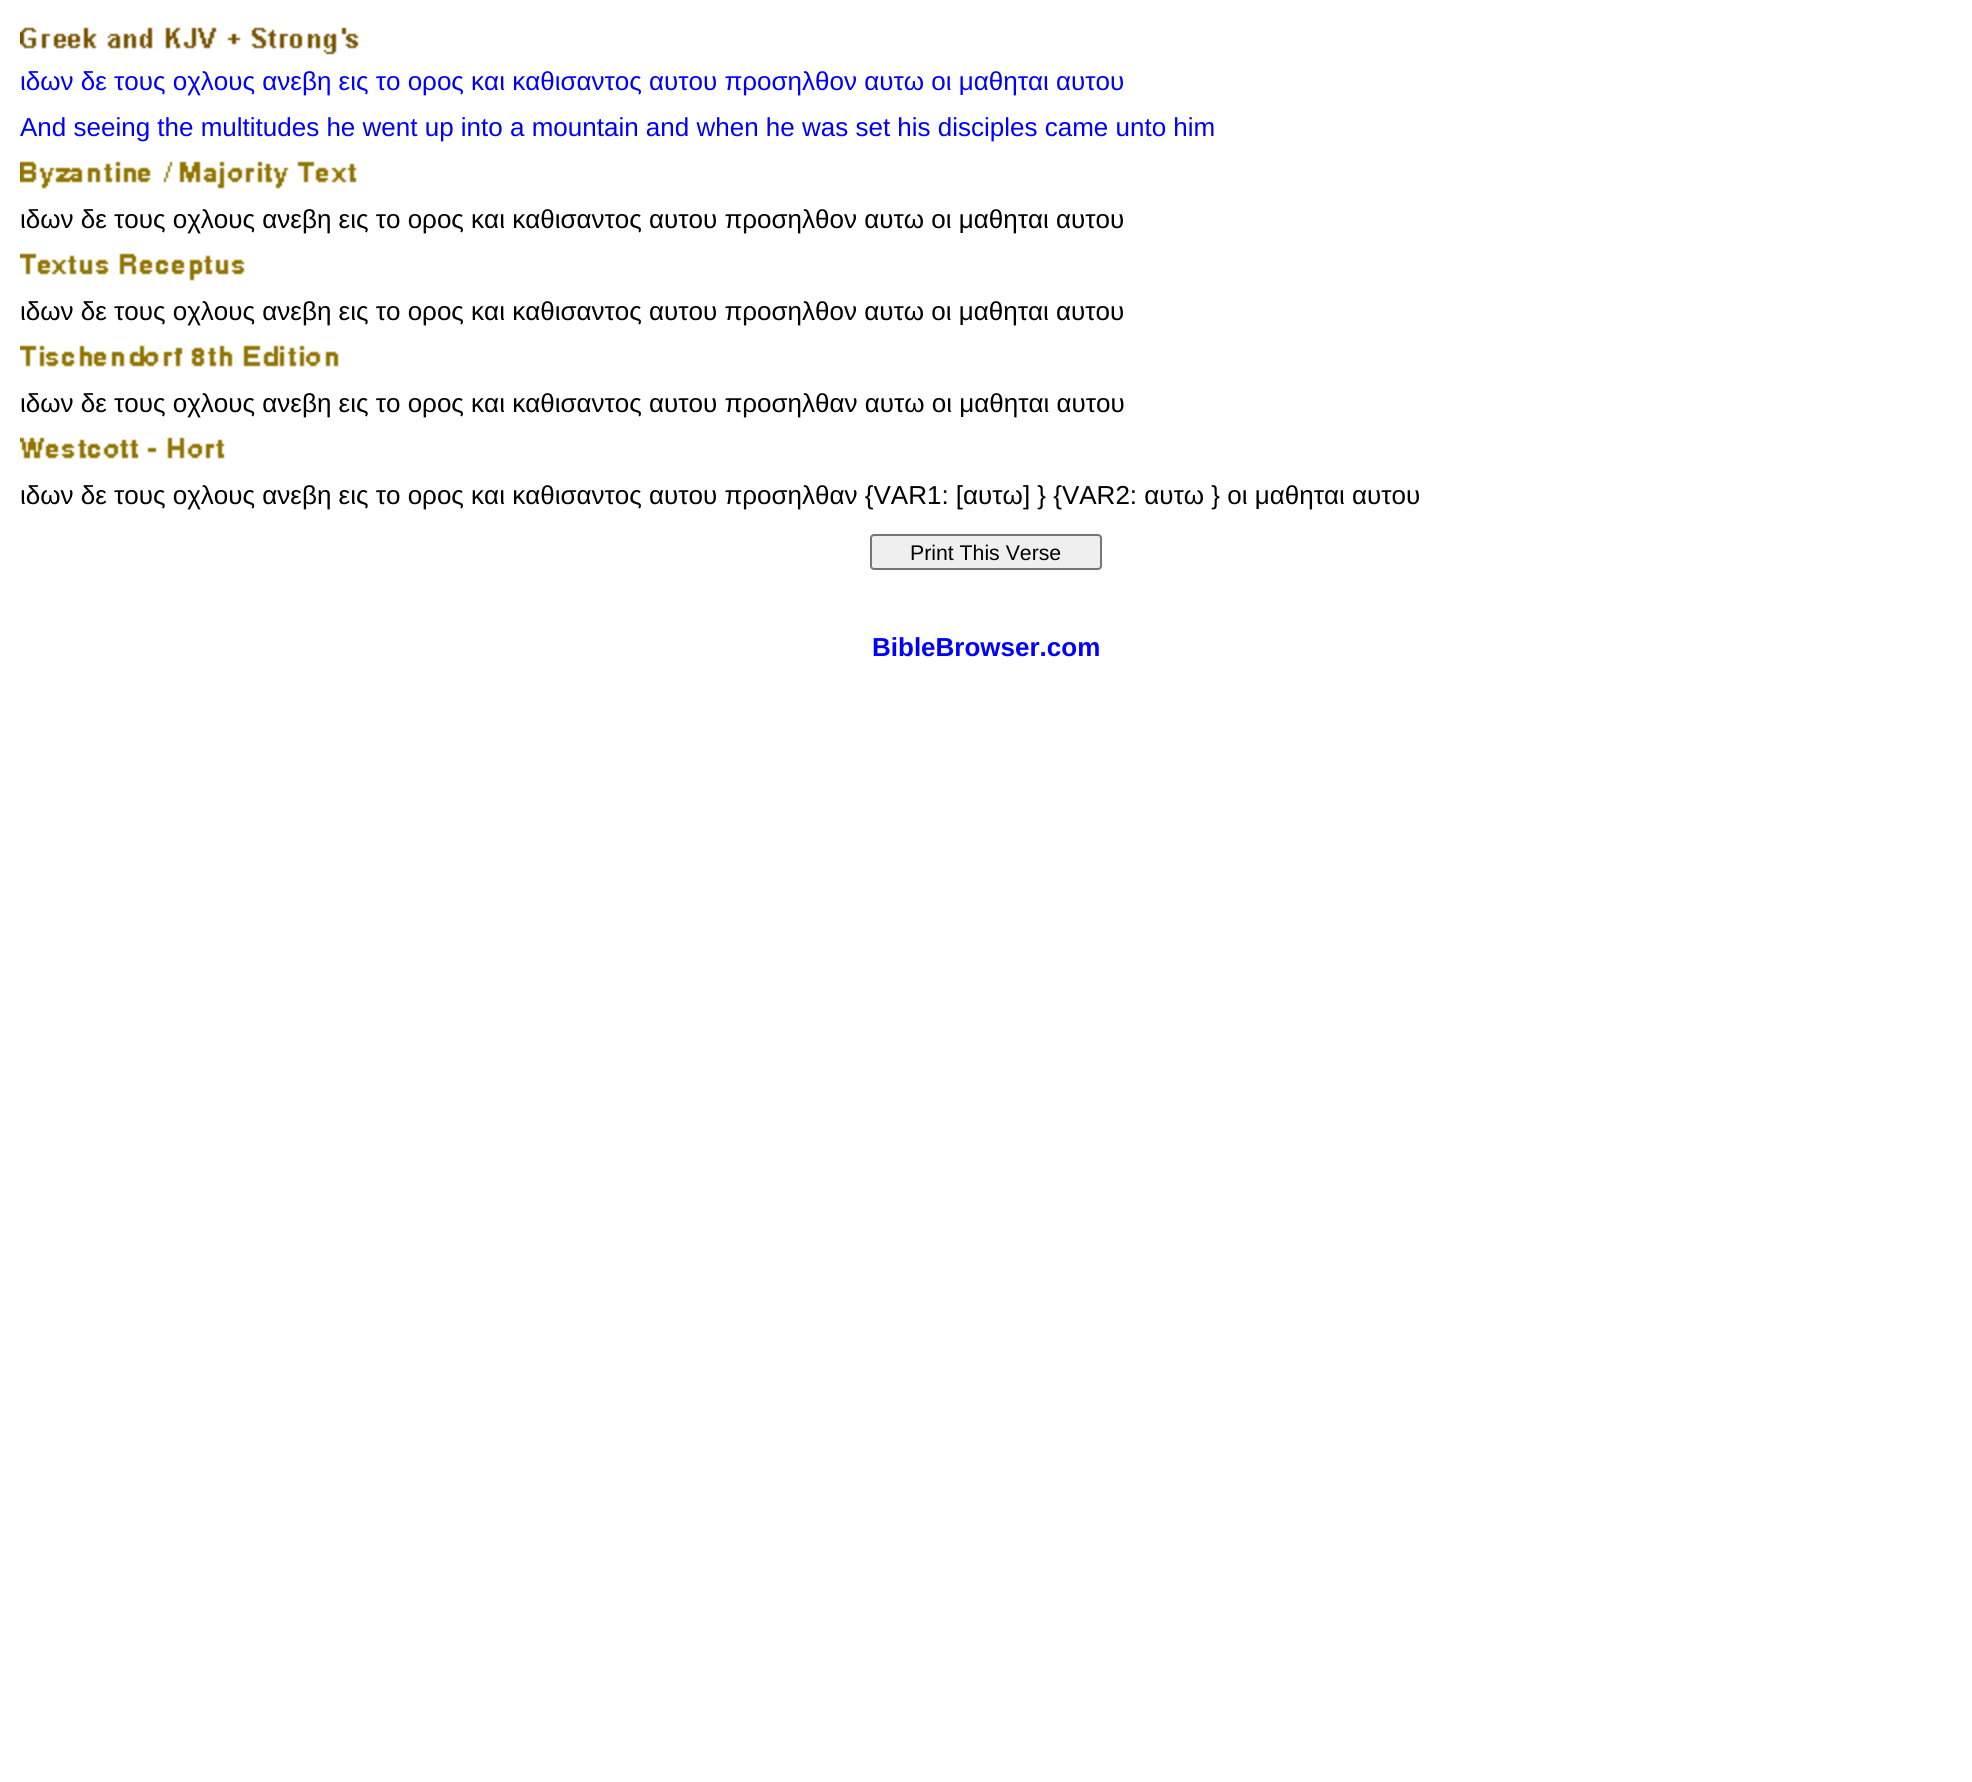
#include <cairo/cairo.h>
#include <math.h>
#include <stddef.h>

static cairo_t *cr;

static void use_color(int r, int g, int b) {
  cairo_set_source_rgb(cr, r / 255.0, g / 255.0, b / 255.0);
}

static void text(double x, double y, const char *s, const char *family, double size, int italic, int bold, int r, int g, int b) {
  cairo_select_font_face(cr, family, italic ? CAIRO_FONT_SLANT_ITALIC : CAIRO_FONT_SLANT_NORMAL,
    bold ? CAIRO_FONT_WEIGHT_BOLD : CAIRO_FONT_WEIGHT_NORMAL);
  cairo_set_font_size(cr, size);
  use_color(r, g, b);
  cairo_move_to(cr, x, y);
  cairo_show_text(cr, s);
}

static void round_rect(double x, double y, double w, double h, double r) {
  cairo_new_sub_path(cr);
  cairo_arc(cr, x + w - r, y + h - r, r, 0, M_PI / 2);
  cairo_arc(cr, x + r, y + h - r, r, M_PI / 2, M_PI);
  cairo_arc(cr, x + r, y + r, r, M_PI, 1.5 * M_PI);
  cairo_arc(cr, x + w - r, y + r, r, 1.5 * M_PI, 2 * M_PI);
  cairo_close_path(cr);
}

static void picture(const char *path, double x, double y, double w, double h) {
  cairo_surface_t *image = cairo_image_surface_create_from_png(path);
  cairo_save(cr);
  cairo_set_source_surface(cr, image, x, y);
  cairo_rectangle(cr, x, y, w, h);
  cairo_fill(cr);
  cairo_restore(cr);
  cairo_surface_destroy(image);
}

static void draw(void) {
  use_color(255, 255, 255);
  cairo_paint(cr);
  picture("img_01.png", 20, 27, 339, 28);
  picture("img_02.png", 20, 161, 337, 28);
  picture("img_03.png", 20, 253, 225, 28);
  picture("img_04.png", 20, 345, 319, 22);
  picture("img_05.png", 20, 437, 205, 22);
  use_color(239, 239, 239);
  round_rect(871, 535, 230, 34, 3);
  cairo_fill_preserve(cr);
  use_color(118, 118, 118);
  cairo_stroke(cr);
  text(20, 90, "ιδων δε τους οχλους ανεβη εις το ορος και καθισαντος αυτου προσηλθον αυτω οι μαθηται αυτου", "Liberation Sans", 26, 0, 0, 0, 0, 255);
  text(20, 136, "And seeing the multitudes he went up into a mountain and when he was set his disciples came unto him", "Liberation Sans", 26, 0, 0, 0, 0, 255);
  text(20, 228, "ιδων δε τους οχλους ανεβη εις το ορος και καθισαντος αυτου προσηλθον αυτω οι μαθηται αυτου", "Liberation Sans", 26, 0, 0, 0, 0, 0);
  text(20, 320, "ιδων δε τους οχλους ανεβη εις το ορος και καθισαντος αυτου προσηλθον αυτω οι μαθηται αυτου", "Liberation Sans", 26, 0, 0, 0, 0, 0);
  text(20, 412, "ιδων δε τους οχλους ανεβη εις το ορος και καθισαντος αυτου προσηλθαν αυτω οι μαθηται αυτου", "Liberation Sans", 26, 0, 0, 0, 0, 0);
  text(20, 504, "ιδων δε τους οχλους ανεβη εις το ορος και καθισαντος αυτου προσηλθαν {VAR1: [αυτω] } {VAR2: αυτω } οι μαθηται αυτου", "Liberation Sans", 26, 0, 0, 0, 0, 0);
  text(910, 560, "Print This Verse", "Liberation Sans", 21.25, 0, 0, 0, 0, 0);
  text(872, 656, "BibleBrowser.com", "Liberation Sans", 26, 0, 1, 0, 0, 255);
}

int main(void) {
  cairo_surface_t *surface = cairo_image_surface_create(CAIRO_FORMAT_RGB24, 1972, 1782);
  cr = cairo_create(surface);
  cairo_font_options_t *options = cairo_font_options_create();
  cairo_font_options_set_hint_metrics(options, CAIRO_HINT_METRICS_OFF);
  cairo_font_options_set_hint_style(options, CAIRO_HINT_STYLE_NONE);
  cairo_set_font_options(cr, options);
  cairo_set_miter_limit(cr, 4);
  draw();
  cairo_surface_write_to_png(surface, "out.png");
  cairo_font_options_destroy(options);
  cairo_destroy(cr);
  cairo_surface_destroy(surface);
  return 0;
}
